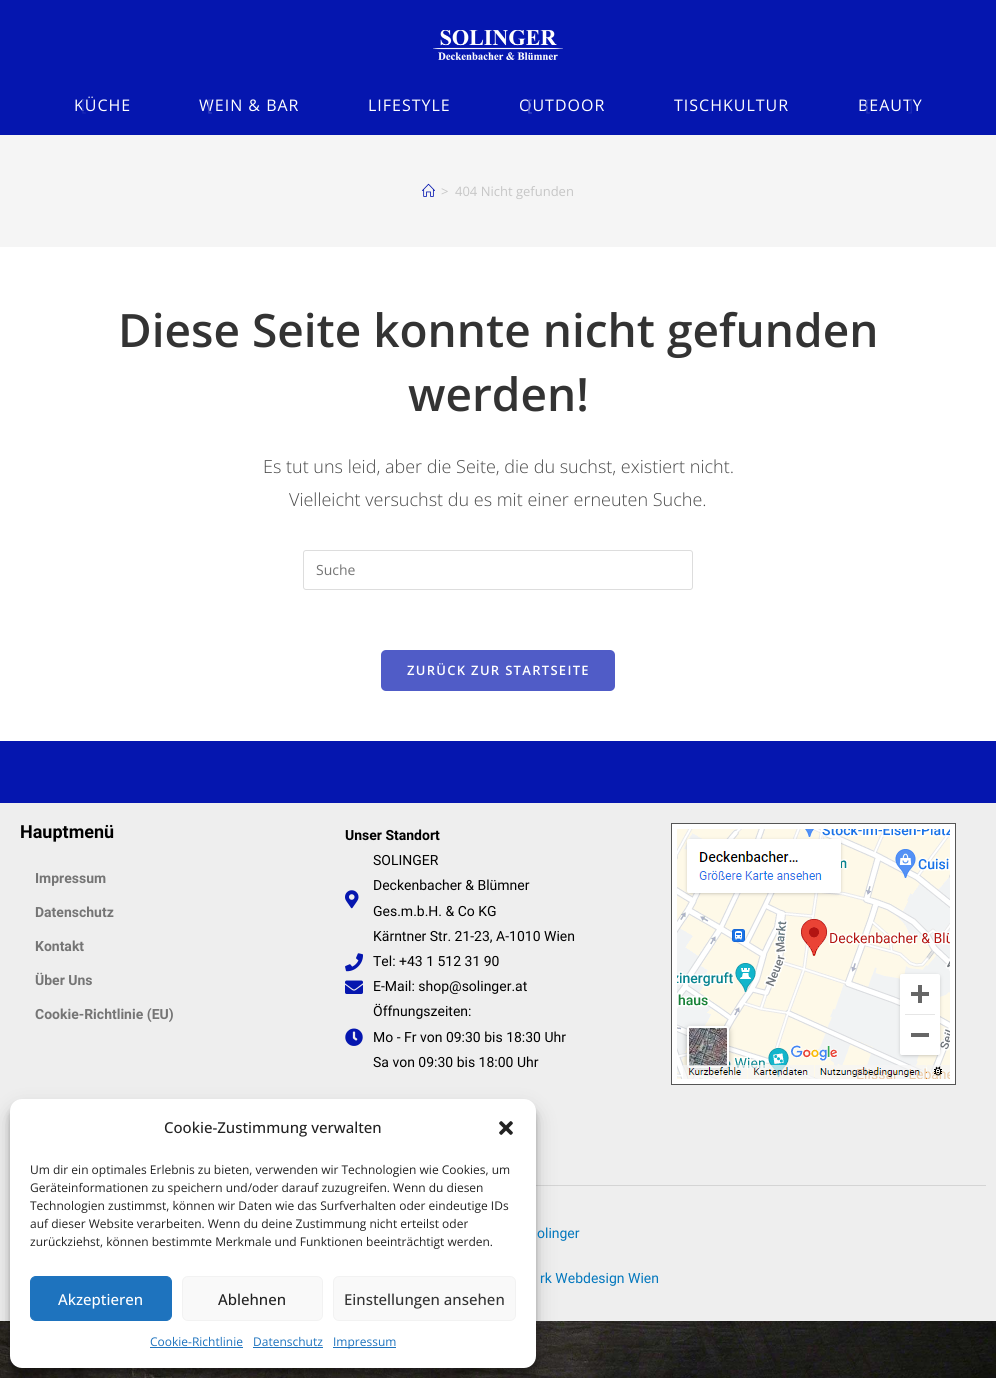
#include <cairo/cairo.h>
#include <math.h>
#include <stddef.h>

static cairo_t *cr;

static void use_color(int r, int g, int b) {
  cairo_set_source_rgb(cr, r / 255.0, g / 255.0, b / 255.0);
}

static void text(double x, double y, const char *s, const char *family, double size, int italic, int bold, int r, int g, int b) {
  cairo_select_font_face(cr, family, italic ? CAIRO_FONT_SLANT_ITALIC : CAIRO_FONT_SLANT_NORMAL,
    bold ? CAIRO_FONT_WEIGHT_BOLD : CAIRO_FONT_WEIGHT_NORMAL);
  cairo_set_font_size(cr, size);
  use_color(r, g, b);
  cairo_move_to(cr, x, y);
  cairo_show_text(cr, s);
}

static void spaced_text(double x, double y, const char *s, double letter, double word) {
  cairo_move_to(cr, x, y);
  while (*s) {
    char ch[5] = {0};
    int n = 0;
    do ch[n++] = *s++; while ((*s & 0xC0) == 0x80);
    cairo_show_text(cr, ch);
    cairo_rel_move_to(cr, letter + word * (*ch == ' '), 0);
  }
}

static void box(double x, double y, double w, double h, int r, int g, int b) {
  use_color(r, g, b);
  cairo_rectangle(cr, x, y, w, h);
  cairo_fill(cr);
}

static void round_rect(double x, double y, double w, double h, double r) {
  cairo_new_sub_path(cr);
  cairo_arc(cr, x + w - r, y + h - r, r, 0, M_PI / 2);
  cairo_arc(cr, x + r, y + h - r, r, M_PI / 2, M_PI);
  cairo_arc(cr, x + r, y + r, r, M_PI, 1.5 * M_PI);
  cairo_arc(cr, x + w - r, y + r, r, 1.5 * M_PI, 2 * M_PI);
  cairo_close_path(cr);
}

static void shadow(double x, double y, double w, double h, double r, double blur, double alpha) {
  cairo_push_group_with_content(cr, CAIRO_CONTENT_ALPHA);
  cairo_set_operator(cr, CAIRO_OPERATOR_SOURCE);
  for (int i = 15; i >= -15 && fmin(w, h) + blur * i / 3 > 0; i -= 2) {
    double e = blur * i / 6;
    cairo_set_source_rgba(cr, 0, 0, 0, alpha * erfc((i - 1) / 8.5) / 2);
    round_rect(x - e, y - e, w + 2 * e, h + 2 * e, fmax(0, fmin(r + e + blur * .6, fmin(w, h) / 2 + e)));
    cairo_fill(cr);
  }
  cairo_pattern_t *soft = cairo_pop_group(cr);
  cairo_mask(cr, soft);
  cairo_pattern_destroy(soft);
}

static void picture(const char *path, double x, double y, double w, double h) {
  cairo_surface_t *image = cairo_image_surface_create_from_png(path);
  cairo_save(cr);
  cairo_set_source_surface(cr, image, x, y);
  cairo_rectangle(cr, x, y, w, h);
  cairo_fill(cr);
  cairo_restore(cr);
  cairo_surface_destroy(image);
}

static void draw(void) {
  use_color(255, 255, 255);
  cairo_paint(cr);
  picture("img_01.png", 0, 1321, 996, 57);
  use_color(0, 0, 0);
  shadow(0, 1, 996, 1321, 0, 2, 0.15);
  box(0, 0, 996, 135, 5, 22, 175);
  picture("img_02.png", 433, 30, 130, 30);
  box(0, 247, 996, 494, 255, 255, 255);
  box(0, 135, 996, 112, 245, 245, 245);
  picture("img_03.png", 422, 183, 13, 14);
  round_rect(303.5, 550.5, 389, 39, 2.5);
  use_color(221, 221, 221);
  cairo_set_line_width(cr, 1);
  cairo_stroke(cr);
  use_color(80, 92, 199);
  round_rect(381, 650, 234, 41, 5);
  cairo_fill(cr);
  box(0, 741, 996, 62, 5, 22, 175);
  box(0, 803, 996, 518, 238, 238, 238);
  picture("img_04.png", 345, 890, 14, 19);
  picture("img_05.png", 345, 953, 18, 19);
  picture("img_06.png", 345, 980, 18, 14);
  picture("img_07.png", 345, 1028, 18, 18);
  picture("img_08.png", 671, 823, 285, 262);
  box(536, 1185, 450, 1, 212, 212, 212);
  use_color(0, 0, 0);
  shadow(10, 1105, 526, 269, 12, 3, 0.23);
  shadow(10, 1109, 526, 269, 12, 10, 0.19);
  use_color(255, 255, 255);
  round_rect(10, 1099, 526, 269, 12);
  cairo_fill(cr);
  picture("img_09.png", 499, 1121, 14, 14);
  use_color(30, 115, 190);
  round_rect(30.5, 1276.5, 141, 44, 5.5);
  cairo_fill_preserve(cr);
  cairo_stroke(cr);
  use_color(249, 249, 249);
  round_rect(182.5, 1276.5, 140, 44, 5.5);
  cairo_fill_preserve(cr);
  use_color(242, 242, 242);
  cairo_stroke(cr);
  use_color(249, 249, 249);
  round_rect(333.5, 1276.5, 182, 44, 5.5);
  cairo_fill_preserve(cr);
  use_color(242, 242, 242);
  cairo_stroke(cr);
  box(150, 1347, 93, 1, 30, 115, 190);
  box(253, 1347, 70, 1, 30, 115, 190);
  box(333, 1347, 63, 1, 30, 115, 190);
  cairo_select_font_face(cr, "Open Sans", CAIRO_FONT_SLANT_NORMAL, CAIRO_FONT_WEIGHT_NORMAL);
  cairo_set_font_size(cr, 16);
  use_color(255, 255, 255);
  spaced_text(74, 111, "KÜCHE", 1, 0);
  use_color(26, 42, 182);
  spaced_text(81, 111, "[", 1, 0);
  use_color(255, 255, 255);
  spaced_text(199, 111, "WEIN & BAR", 1, 0);
  use_color(56, 70, 191);
  spaced_text(207, 111, "[", 1, 0);
  use_color(255, 255, 255);
  spaced_text(368, 111, "LIFESTYLE", 1, 0);
  spaced_text(519, 111, "OUTDOOR", 1, 0);
  use_color(73, 85, 197);
  spaced_text(527, 111, "[", 1, 0);
  use_color(255, 255, 255);
  spaced_text(674, 111, "TISCHKULTUR", 1, 0);
  spaced_text(858, 111, "BEAUTY", 1, 0);
  use_color(37, 51, 185);
  spaced_text(865, 111, "[", 1, 0);
  use_color(26, 42, 182);
  spaced_text(908, 111, "]", 1, 0);
  text(441, 196, ">", "Open Sans", 13, 0, 0, 198, 198, 198);
  text(455, 196, "404 Nicht gefunden", "Open Sans", 13, 0, 0, 198, 198, 198);
  text(118, 347, "Diese Seite konnte nicht gefunden", "Open Sans SemiBold", 46, 0, 0, 51, 51, 51);
  text(408, 411, "werden!", "Open Sans SemiBold", 46, 0, 0, 51, 51, 51);
  text(263, 473, "Es tut uns leid, aber die Seite, die du suchst, existiert nicht.", "Open Sans Light", 18, 0, 0, 74, 74, 74);
  text(289, 506, "Vielleicht versuchst du es mit einer erneuten Suche.", "Open Sans Light", 18, 0, 0, 74, 74, 74);
  text(316, 575, "Suche", "Open Sans", 14, 0, 0, 117, 117, 117);
  cairo_select_font_face(cr, "Open Sans SemiBold", CAIRO_FONT_SLANT_NORMAL, CAIRO_FONT_WEIGHT_NORMAL);
  cairo_set_font_size(cr, 13);
  use_color(255, 255, 255);
  spaced_text(407, 675, "ZURÜCK ZUR STARTSEITE", 1.3, 0);
  text(20, 838, "Hauptmenü", "Roboto", 18, 0, 1, 0, 0, 0);
  text(35, 883, "Impressum", "Roboto", 14, 0, 1, 117, 117, 117);
  text(35, 917, "Datenschutz", "Roboto", 14, 0, 1, 117, 117, 117);
  text(35, 951, "Kontakt", "Roboto", 14, 0, 1, 117, 117, 117);
  text(35, 985, "Über Uns", "Roboto", 14, 0, 1, 117, 117, 117);
  text(35, 1019, "Cookie-Richtlinie (EU)", "Roboto", 14, 0, 1, 117, 117, 117);
  text(345, 840, "Unser Standort", "Roboto", 14, 0, 1, 0, 0, 0);
  text(373, 865, "SOLINGER", "Roboto", 14, 0, 0, 0, 0, 0);
  text(373, 890, "Deckenbacher & Blümner", "Roboto", 14, 0, 0, 0, 0, 0);
  text(373, 916, "Ges.m.b.H. & Co KG", "Roboto", 14, 0, 0, 0, 0, 0);
  text(373, 941, "Kärntner Str. 21-23, A-1010 Wien", "Roboto", 14, 0, 0, 0, 0, 0);
  text(373, 966, "Tel: +43 1 512 31 90", "Roboto", 14, 0, 0, 0, 0, 0);
  text(373, 991, "E-Mail: shop@solinger.at", "Roboto", 14, 0, 0, 0, 0, 0);
  text(373, 1016, "Öffnungszeiten:", "Roboto", 14, 0, 0, 0, 0, 0);
  text(373, 1042, "Mo - Fr von 09:30 bis 18:30 Uhr", "Roboto", 14, 0, 0, 0, 0, 0);
  text(373, 1067, "Sa von 09:30 bis 18:00 Uhr", "Roboto", 14, 0, 0, 0, 0, 0);
  text(537, 1238, "olinger", "Roboto", 14, 0, 0, 2, 119, 189);
  text(540, 1283, "rk Webdesign Wien", "Roboto", 14, 0, 0, 2, 119, 189);
  text(164, 1133, "Cookie-Zustimmung verwalten", "Open Sans Medium", 15, 0, 0, 34, 34, 34);
  text(30, 1174, "Um dir ein optimales Erlebnis zu bieten, verwenden wir Technologien wie Cookies, um", "Open Sans", 12, 0, 0, 34, 34, 34);
  text(30, 1192, "Geräteinformationen zu speichern und/oder darauf zuzugreifen. Wenn du diesen", "Open Sans", 12, 0, 0, 34, 34, 34);
  text(30, 1210, "Technologien zustimmst, können wir Daten wie das Surfverhalten oder eindeutige IDs", "Open Sans", 12, 0, 0, 34, 34, 34);
  text(30, 1228, "auf dieser Website verarbeiten. Wenn du deine Zustimmung nicht erteilst oder", "Open Sans", 12, 0, 0, 34, 34, 34);
  text(30, 1246, "zurückziehst, können bestimmte Merkmale und Funktionen beeinträchtigt werden.", "Open Sans", 12, 0, 0, 34, 34, 34);
  text(58, 1305, "Akzeptieren", "Open Sans Medium", 15, 0, 0, 255, 255, 255);
  text(218, 1305, "Ablehnen", "Open Sans Medium", 15, 0, 0, 34, 34, 34);
  text(344, 1305, "Einstellungen ansehen", "Open Sans Medium", 15, 0, 0, 51, 51, 51);
  text(150, 1346, "Cookie-Richtlinie", "Open Sans", 12, 0, 0, 30, 115, 190);
  text(253, 1346, "Datenschutz", "Open Sans", 12, 0, 0, 30, 115, 190);
  text(333, 1346, "Impressum", "Open Sans", 12, 0, 0, 30, 115, 190);
}

int main(void) {
  cairo_surface_t *surface = cairo_image_surface_create(CAIRO_FORMAT_RGB24, 996, 1378);
  cr = cairo_create(surface);
  cairo_font_options_t *options = cairo_font_options_create();
  cairo_font_options_set_hint_metrics(options, CAIRO_HINT_METRICS_OFF);
  cairo_font_options_set_hint_style(options, CAIRO_HINT_STYLE_NONE);
  cairo_set_font_options(cr, options);
  cairo_set_miter_limit(cr, 4);
  draw();
  cairo_surface_write_to_png(surface, "out.png");
  cairo_font_options_destroy(options);
  cairo_destroy(cr);
  cairo_surface_destroy(surface);
  return 0;
}
